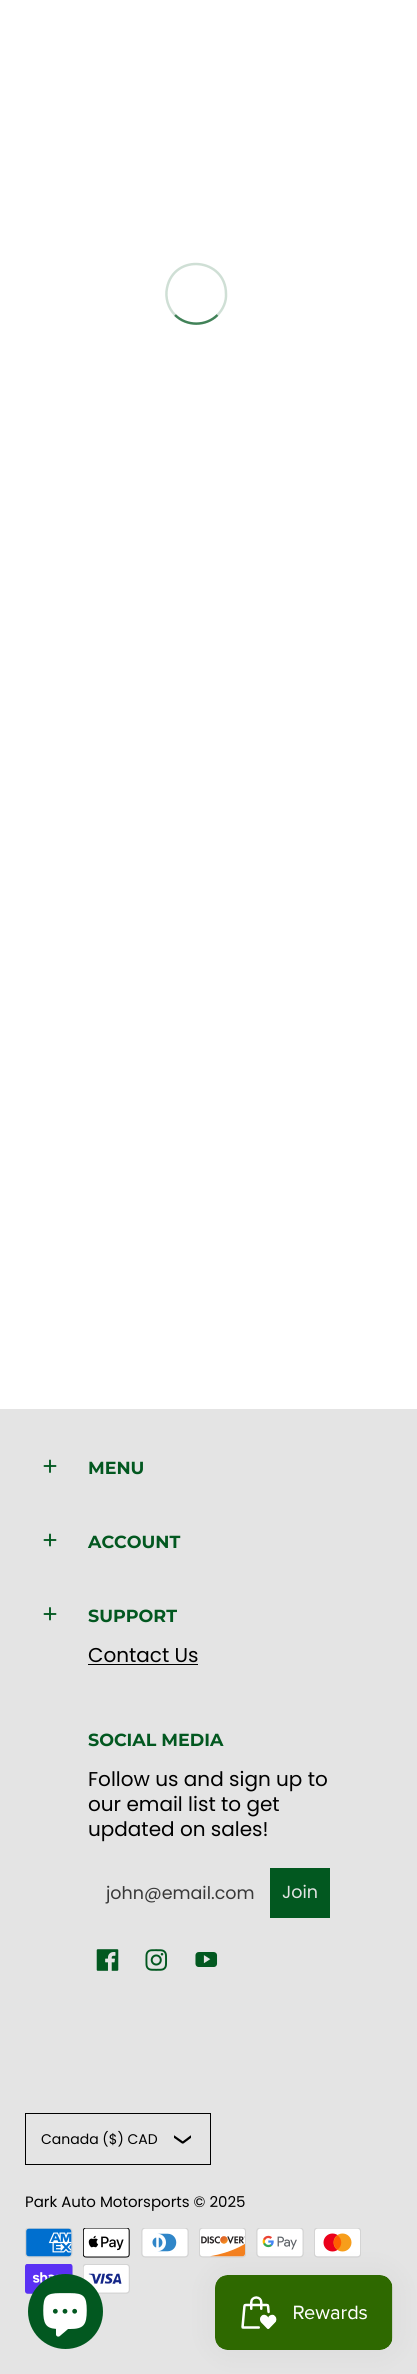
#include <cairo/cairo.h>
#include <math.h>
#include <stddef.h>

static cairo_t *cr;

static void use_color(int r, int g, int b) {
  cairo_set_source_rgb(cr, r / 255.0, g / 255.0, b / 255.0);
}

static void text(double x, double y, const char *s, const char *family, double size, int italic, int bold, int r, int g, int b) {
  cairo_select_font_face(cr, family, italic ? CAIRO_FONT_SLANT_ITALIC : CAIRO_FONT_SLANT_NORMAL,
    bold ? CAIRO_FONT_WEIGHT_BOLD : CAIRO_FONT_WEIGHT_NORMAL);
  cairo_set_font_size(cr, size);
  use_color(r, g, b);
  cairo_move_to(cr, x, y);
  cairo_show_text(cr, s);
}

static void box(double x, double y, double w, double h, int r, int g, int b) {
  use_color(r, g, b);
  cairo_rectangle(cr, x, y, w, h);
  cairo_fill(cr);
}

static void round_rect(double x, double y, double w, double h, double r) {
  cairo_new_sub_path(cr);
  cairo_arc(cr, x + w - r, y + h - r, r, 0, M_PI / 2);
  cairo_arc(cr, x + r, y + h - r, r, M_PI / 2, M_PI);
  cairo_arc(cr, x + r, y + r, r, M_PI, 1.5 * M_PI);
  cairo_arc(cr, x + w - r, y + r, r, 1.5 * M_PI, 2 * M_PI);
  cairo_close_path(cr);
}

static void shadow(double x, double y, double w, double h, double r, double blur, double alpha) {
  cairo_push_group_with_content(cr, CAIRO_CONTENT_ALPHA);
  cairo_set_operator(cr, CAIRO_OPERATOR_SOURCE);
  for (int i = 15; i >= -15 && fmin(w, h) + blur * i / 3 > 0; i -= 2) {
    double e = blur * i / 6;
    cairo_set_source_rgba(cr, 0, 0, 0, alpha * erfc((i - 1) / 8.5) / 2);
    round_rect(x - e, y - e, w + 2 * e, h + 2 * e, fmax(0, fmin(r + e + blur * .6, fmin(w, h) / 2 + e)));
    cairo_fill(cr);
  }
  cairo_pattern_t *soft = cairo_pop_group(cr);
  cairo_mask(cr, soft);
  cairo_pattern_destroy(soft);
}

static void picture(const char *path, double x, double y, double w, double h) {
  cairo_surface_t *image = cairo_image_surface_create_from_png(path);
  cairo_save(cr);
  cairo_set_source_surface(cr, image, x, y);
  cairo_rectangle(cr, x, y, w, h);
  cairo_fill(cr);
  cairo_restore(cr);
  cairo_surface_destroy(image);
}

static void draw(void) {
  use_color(255, 255, 255);
  cairo_paint(cr);
  cairo_new_path(cr);
  cairo_move_to(cr, 217.5, 315);
  cairo_curve_to(cr, 206, 326.5, 186.5, 326.5, 175, 315);
  use_color(65, 130, 88);
  cairo_set_line_width(cr, 2.5);
  cairo_stroke(cr);
  cairo_new_path(cr);
  cairo_move_to(cr, 175, 315);
  cairo_curve_to(cr, 168, 308, 165, 297.5, 167, 288);
  cairo_curve_to(cr, 174, 252.5, 226, 258, 226, 294);
  cairo_curve_to(cr, 226.5, 301.5, 223, 309.5, 217.5, 315);
  cairo_set_source_rgba(cr, 0.255, 0.51, 0.345, 0.25);
  cairo_stroke(cr);
  box(0, 1409, 417, 965, 228, 228, 228);
  cairo_new_path(cr);
  cairo_move_to(cr, 50, 1460.5);
  cairo_line_to(cr, 50, 1472);
  cairo_move_to(cr, 55.5, 1466);
  cairo_line_to(cr, 44.5, 1466);
  use_color(2, 88, 32);
  cairo_set_line_width(cr, 1.9);
  cairo_set_line_cap(cr, CAIRO_LINE_CAP_ROUND);
  cairo_set_line_join(cr, CAIRO_LINE_JOIN_ROUND);
  cairo_stroke(cr);
  cairo_new_path(cr);
  cairo_move_to(cr, 50, 1534.5);
  cairo_line_to(cr, 50, 1545.5);
  cairo_move_to(cr, 55.5, 1540);
  cairo_line_to(cr, 44.5, 1540);
  cairo_stroke(cr);
  cairo_new_path(cr);
  cairo_move_to(cr, 50, 1608);
  cairo_line_to(cr, 50, 1619.5);
  cairo_move_to(cr, 55.5, 1614);
  cairo_line_to(cr, 44.5, 1614);
  cairo_stroke(cr);
  box(88, 1664, 110, 1, 0, 0, 0);
  box(270, 1868, 60, 50, 2, 88, 32);
  picture("img_01.png", 96, 1949, 23, 22);
  picture("img_02.png", 145, 1949, 23, 22);
  picture("img_03.png", 195, 1952, 23, 15);
  cairo_rectangle(cr, 25.5, 2113.5, 185, 51);
  use_color(0, 0, 0);
  cairo_set_line_width(cr, 1);
  cairo_set_line_cap(cr, CAIRO_LINE_CAP_BUTT);
  cairo_set_line_join(cr, CAIRO_LINE_JOIN_MITER);
  cairo_stroke(cr);
  cairo_save(cr);
  cairo_rectangle(cr, 174, 2130, 17, 18);
  cairo_clip(cr);
  cairo_new_path(cr);
  cairo_move_to(cr, 174, 2136.5);
  cairo_line_to(cr, 182.5, 2142.5);
  cairo_line_to(cr, 183, 2142.5);
  cairo_line_to(cr, 191, 2136.5);
  cairo_set_line_width(cr, 2.2);
  cairo_set_line_cap(cr, CAIRO_LINE_CAP_ROUND);
  cairo_set_line_join(cr, CAIRO_LINE_JOIN_ROUND);
  cairo_stroke(cr);
  cairo_restore(cr);
  picture("img_04.png", 25, 2228, 48, 30);
  picture("img_05.png", 83, 2228, 47, 30);
  picture("img_06.png", 141, 2228, 48, 30);
  picture("img_07.png", 199, 2228, 47, 30);
  picture("img_08.png", 256, 2228, 48, 30);
  picture("img_09.png", 314, 2228, 47, 30);
  picture("img_10.png", 25, 2264, 48, 30);
  picture("img_11.png", 83, 2264, 47, 30);
  use_color(2, 88, 32);
  cairo_arc(cr, 65.5, 2311.5, 37.5, 0, 2 * M_PI);
  cairo_fill(cr);
  picture("img_12.png", 43, 2293, 44, 44);
  use_color(0, 0, 0);
  shadow(215, 2275, 178, 75, 13, 15.5, 0.05);
  picture("img_13.png", 215, 2275, 178, 75);
  text(88, 1474, "MENU", "Montserrat", 17.5, 0, 1, 2, 88, 32);
  text(88, 1548, "ACCOUNT", "Montserrat", 17.5, 0, 1, 2, 88, 32);
  text(88, 1622, "SUPPORT", "Montserrat", 17.5, 0, 1, 2, 88, 32);
  text(88, 1662, "Contact Us", "Poppins", 20, 0, 0, 0, 0, 0);
  text(88, 1746, "SOCIAL MEDIA", "Montserrat", 17.5, 0, 1, 2, 88, 32);
  text(88, 1786, "Follow us and sign up to", "Poppins", 20, 0, 0, 0, 0, 0);
  text(88, 1811, "our email list to get", "Poppins", 20, 0, 0, 0, 0, 0);
  text(88, 1836, "updated on sales!", "Poppins", 20, 0, 0, 0, 0, 0);
  text(106, 1899, "john@email.com", "Poppins", 17.5, 0, 0, 57, 57, 57);
  text(282, 1898, "Join", "Poppins", 17.5, 0, 0, 228, 228, 228);
  text(41, 2144, "Canada ($) CAD", "Poppins", 14, 0, 0, 0, 0, 0);
  text(25, 2207, "Park Auto Motorsports © 2025", "Poppins", 15, 0, 0, 0, 0, 0);
}

int main(void) {
  cairo_surface_t *surface = cairo_image_surface_create(CAIRO_FORMAT_RGB24, 417, 2374);
  cr = cairo_create(surface);
  cairo_font_options_t *options = cairo_font_options_create();
  cairo_font_options_set_hint_metrics(options, CAIRO_HINT_METRICS_OFF);
  cairo_font_options_set_hint_style(options, CAIRO_HINT_STYLE_NONE);
  cairo_set_font_options(cr, options);
  cairo_set_miter_limit(cr, 4);
  draw();
  cairo_surface_write_to_png(surface, "out.png");
  cairo_font_options_destroy(options);
  cairo_destroy(cr);
  cairo_surface_destroy(surface);
  return 0;
}
